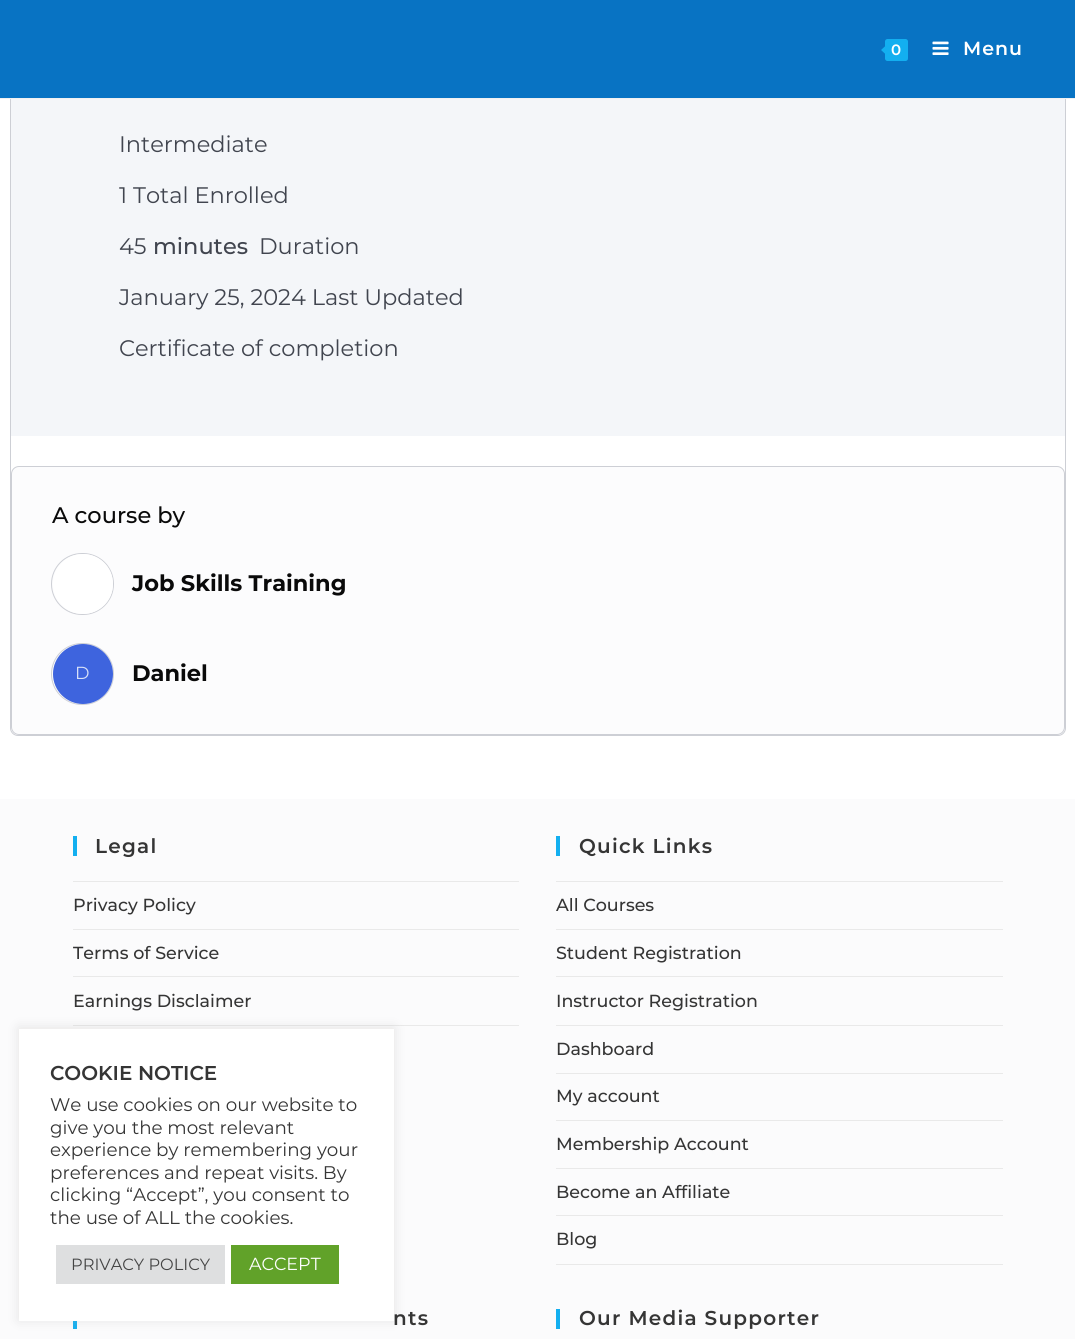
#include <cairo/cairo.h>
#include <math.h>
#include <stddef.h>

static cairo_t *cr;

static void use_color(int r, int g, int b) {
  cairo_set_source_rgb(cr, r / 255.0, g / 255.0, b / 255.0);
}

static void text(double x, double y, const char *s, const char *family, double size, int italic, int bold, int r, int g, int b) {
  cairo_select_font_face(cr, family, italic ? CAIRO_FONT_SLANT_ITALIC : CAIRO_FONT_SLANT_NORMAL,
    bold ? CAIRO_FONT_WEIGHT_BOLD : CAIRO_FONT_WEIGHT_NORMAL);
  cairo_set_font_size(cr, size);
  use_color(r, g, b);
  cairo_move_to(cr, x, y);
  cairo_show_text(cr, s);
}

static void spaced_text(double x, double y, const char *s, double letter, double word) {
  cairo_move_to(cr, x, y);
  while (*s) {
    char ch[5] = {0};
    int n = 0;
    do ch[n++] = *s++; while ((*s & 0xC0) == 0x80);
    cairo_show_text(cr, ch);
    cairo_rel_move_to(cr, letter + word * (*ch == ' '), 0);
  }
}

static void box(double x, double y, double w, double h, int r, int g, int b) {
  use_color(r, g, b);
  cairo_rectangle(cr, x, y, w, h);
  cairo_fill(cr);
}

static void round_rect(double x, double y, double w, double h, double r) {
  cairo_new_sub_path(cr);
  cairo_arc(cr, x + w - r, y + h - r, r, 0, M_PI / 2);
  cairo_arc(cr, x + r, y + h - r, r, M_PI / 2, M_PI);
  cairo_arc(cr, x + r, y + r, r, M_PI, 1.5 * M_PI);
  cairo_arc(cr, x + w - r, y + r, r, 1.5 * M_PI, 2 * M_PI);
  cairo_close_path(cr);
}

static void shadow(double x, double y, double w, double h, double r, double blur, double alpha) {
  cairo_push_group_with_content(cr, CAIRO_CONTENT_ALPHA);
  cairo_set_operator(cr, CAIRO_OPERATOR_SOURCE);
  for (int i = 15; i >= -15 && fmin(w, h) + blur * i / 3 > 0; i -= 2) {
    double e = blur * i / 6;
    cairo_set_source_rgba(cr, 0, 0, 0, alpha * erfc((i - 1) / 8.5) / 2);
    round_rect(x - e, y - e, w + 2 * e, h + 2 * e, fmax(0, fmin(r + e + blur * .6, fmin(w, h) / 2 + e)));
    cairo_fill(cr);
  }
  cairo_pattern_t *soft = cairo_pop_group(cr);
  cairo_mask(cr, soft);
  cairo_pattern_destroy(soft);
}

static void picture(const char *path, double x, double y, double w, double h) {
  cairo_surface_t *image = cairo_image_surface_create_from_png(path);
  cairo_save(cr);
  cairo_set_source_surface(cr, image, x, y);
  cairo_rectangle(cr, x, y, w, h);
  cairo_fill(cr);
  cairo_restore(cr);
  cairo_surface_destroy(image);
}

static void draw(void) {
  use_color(255, 255, 255);
  cairo_paint(cr);
  round_rect(10.5, -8.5, 1055, 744, 7.5);
  use_color(205, 207, 213);
  cairo_set_line_width(cr, 1);
  cairo_stroke(cr);
  box(0, 0, 1075, 98, 8, 115, 195);
  box(0, 98, 1075, 1, 241, 241, 241);
  use_color(19, 175, 240);
  round_rect(885, 39, 23, 22, 2.5);
  cairo_fill(cr);
  cairo_new_path(cr);
  cairo_move_to(cr, 887.5, 44);
  cairo_line_to(cr, 887.5, 56);
  cairo_line_to(cr, 881, 50);
  cairo_close_path(cr);
  cairo_fill(cr);
  picture("img_01.png", 932, 41, 17, 14);
  box(11, 99, 1054, 337, 244, 246, 249);
  use_color(252, 252, 253);
  round_rect(11.5, 466.5, 1053, 268, 7.5);
  cairo_fill_preserve(cr);
  use_color(205, 207, 213);
  cairo_stroke(cr);
  round_rect(51.5, 553.5, 62, 61, 30.5);
  cairo_stroke(cr);
  use_color(255, 255, 255);
  cairo_arc(cr, 83, 584, 30, 0, 2 * M_PI);
  cairo_fill(cr);
  round_rect(51.5, 643.5, 62, 61, 30.5);
  use_color(205, 207, 213);
  cairo_stroke(cr);
  use_color(62, 100, 222);
  cairo_arc(cr, 83, 674, 30, 0, 2 * M_PI);
  cairo_fill(cr);
  box(0, 799, 1075, 540, 251, 251, 252);
  box(73, 836, 4, 20, 19, 175, 240);
  box(73, 881, 446, 1, 233, 233, 233);
  box(73, 929, 446, 1, 233, 233, 233);
  box(73, 976, 446, 1, 233, 233, 233);
  box(73, 1025, 446, 1, 233, 233, 233);
  box(556, 836, 4, 20, 19, 175, 240);
  box(556, 881, 447, 1, 233, 233, 233);
  box(556, 929, 447, 1, 233, 233, 233);
  box(556, 976, 447, 1, 233, 233, 233);
  box(556, 1025, 447, 1, 233, 233, 233);
  box(556, 1073, 447, 1, 233, 233, 233);
  box(556, 1120, 447, 1, 233, 233, 233);
  box(556, 1168, 447, 1, 233, 233, 233);
  box(556, 1215, 447, 1, 233, 233, 233);
  box(556, 1264, 447, 1, 233, 233, 233);
  box(73, 1321, 4, 8, 19, 175, 240);
  box(556, 1309, 4, 20, 19, 175, 240);
  use_color(172, 171, 171);
  shadow(19, 1028, 375, 292, 0, 6, 0.3);
  box(19, 1029, 375, 292, 255, 255, 255);
  box(56, 1245, 169, 39, 222, 223, 224);
  box(231, 1245, 108, 39, 97, 162, 41);
  cairo_select_font_face(cr, "Montserrat SemiBold", CAIRO_FONT_SLANT_NORMAL, CAIRO_FONT_WEIGHT_NORMAL);
  cairo_set_font_size(cr, 15);
  use_color(255, 255, 255);
  spaced_text(891, 55, "0", 1, 0);
  cairo_set_font_size(cr, 19);
  spaced_text(963, 55, "Menu", 1, 0);
  text(119, 152, "Intermediate", "Montserrat", 22.5, 0, 0, 65, 69, 79);
  text(119, 203, "1 Total Enrolled", "Montserrat", 22.5, 0, 0, 65, 69, 79);
  text(119, 254, "45", "Montserrat", 22.5, 0, 0, 65, 69, 79);
  text(153, 254, "minutes", "Montserrat Medium", 22.5, 0, 0, 65, 69, 79);
  text(259, 254, "Duration", "Montserrat", 22.5, 0, 0, 65, 69, 79);
  text(119, 305, "January 25, 2024 Last Updated", "Montserrat", 22.5, 0, 0, 65, 69, 79);
  text(119, 356, "Certificate of completion", "Montserrat", 22.5, 0, 0, 65, 69, 79);
  text(52, 523, "A course by", "Montserrat Medium", 22.5, 0, 0, 10, 10, 10);
  text(132, 591, "Job Skills Training", "Montserrat", 22.5, 0, 1, 10, 10, 10);
  text(75, 679, "D", "Montserrat", 17.5, 0, 0, 216, 224, 248);
  text(132, 681, "Daniel", "Montserrat", 22.5, 0, 1, 10, 10, 10);
  cairo_select_font_face(cr, "Montserrat SemiBold", CAIRO_FONT_SLANT_NORMAL, CAIRO_FONT_WEIGHT_NORMAL);
  cairo_set_font_size(cr, 20);
  use_color(53, 53, 53);
  spaced_text(95, 853, "Legal", 1.25, 0);
  text(73, 911, "Privacy Policy", "Montserrat Medium", 17.5, 0, 0, 53, 53, 53);
  text(73, 959, "Terms of Service", "Montserrat Medium", 17.5, 0, 0, 53, 53, 53);
  text(73, 1007, "Earnings Disclaimer", "Montserrat Medium", 17.5, 0, 0, 53, 53, 53);
  cairo_select_font_face(cr, "Montserrat SemiBold", CAIRO_FONT_SLANT_NORMAL, CAIRO_FONT_WEIGHT_NORMAL);
  cairo_set_font_size(cr, 20);
  spaced_text(579, 853, "Quick Links", 1.25, 0);
  text(556, 911, "All Courses", "Montserrat Medium", 17.5, 0, 0, 53, 53, 53);
  text(556, 959, "Student Registration", "Montserrat Medium", 17.5, 0, 0, 53, 53, 53);
  text(556, 1007, "Instructor Registration", "Montserrat Medium", 17.5, 0, 0, 53, 53, 53);
  text(556, 1055, "Dashboard", "Montserrat Medium", 17.5, 0, 0, 53, 53, 53);
  text(556, 1102, "My account", "Montserrat Medium", 17.5, 0, 0, 53, 53, 53);
  text(556, 1150, "Membership Account", "Montserrat Medium", 17.5, 0, 0, 53, 53, 53);
  text(556, 1198, "Become an Affiliate", "Montserrat Medium", 17.5, 0, 0, 53, 53, 53);
  text(556, 1245, "Blog", "Montserrat Medium", 17.5, 0, 0, 53, 53, 53);
  cairo_select_font_face(cr, "Montserrat SemiBold", CAIRO_FONT_SLANT_NORMAL, CAIRO_FONT_WEIGHT_NORMAL);
  cairo_set_font_size(cr, 20);
  spaced_text(393, 1325, "nts", 1.25, 0);
  spaced_text(579, 1325, "Our Media Supporter", 1.25, 0);
  text(50, 1080, "COOKIE NOTICE", "Montserrat SemiBold", 20, 0, 0, 53, 53, 53);
  text(50, 1111, "We use cookies on our website to", "Montserrat", 18.3, 0, 0, 53, 53, 53);
  text(50, 1134, "give you the most relevant", "Montserrat", 18.3, 0, 0, 53, 53, 53);
  text(50, 1156, "experience by remembering your", "Montserrat", 18.3, 0, 0, 53, 53, 53);
  text(50, 1179, "preferences and repeat visits. By", "Montserrat", 18.3, 0, 0, 53, 53, 53);
  text(50, 1201, "clicking “Accept”, you consent to", "Montserrat", 18.3, 0, 0, 53, 53, 53);
  text(50, 1224, "the use of ALL the cookies.", "Montserrat", 18.3, 0, 0, 53, 53, 53);
  text(71, 1270, "PRIVACY POLICY", "Montserrat", 16.25, 0, 0, 68, 68, 68);
  text(249, 1270, "ACCEPT", "Montserrat", 17.5, 0, 0, 255, 255, 255);
}

int main(void) {
  cairo_surface_t *surface = cairo_image_surface_create(CAIRO_FORMAT_RGB24, 1075, 1339);
  cr = cairo_create(surface);
  cairo_font_options_t *options = cairo_font_options_create();
  cairo_font_options_set_hint_metrics(options, CAIRO_HINT_METRICS_OFF);
  cairo_font_options_set_hint_style(options, CAIRO_HINT_STYLE_NONE);
  cairo_set_font_options(cr, options);
  cairo_set_miter_limit(cr, 4);
  draw();
  cairo_surface_write_to_png(surface, "out.png");
  cairo_font_options_destroy(options);
  cairo_destroy(cr);
  cairo_surface_destroy(surface);
  return 0;
}
